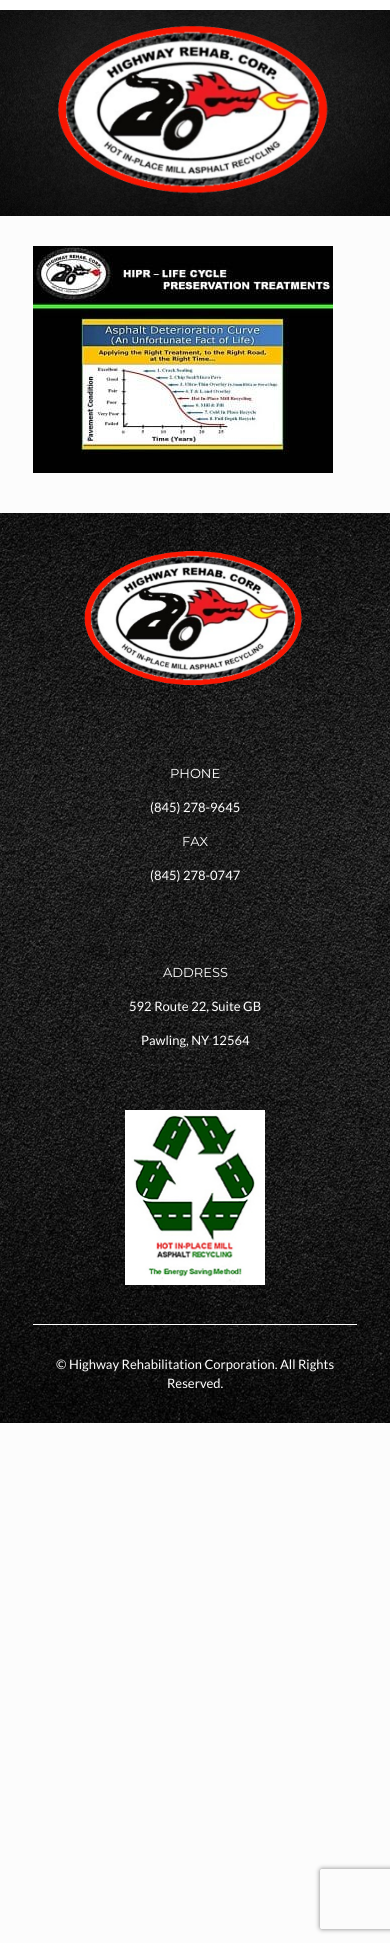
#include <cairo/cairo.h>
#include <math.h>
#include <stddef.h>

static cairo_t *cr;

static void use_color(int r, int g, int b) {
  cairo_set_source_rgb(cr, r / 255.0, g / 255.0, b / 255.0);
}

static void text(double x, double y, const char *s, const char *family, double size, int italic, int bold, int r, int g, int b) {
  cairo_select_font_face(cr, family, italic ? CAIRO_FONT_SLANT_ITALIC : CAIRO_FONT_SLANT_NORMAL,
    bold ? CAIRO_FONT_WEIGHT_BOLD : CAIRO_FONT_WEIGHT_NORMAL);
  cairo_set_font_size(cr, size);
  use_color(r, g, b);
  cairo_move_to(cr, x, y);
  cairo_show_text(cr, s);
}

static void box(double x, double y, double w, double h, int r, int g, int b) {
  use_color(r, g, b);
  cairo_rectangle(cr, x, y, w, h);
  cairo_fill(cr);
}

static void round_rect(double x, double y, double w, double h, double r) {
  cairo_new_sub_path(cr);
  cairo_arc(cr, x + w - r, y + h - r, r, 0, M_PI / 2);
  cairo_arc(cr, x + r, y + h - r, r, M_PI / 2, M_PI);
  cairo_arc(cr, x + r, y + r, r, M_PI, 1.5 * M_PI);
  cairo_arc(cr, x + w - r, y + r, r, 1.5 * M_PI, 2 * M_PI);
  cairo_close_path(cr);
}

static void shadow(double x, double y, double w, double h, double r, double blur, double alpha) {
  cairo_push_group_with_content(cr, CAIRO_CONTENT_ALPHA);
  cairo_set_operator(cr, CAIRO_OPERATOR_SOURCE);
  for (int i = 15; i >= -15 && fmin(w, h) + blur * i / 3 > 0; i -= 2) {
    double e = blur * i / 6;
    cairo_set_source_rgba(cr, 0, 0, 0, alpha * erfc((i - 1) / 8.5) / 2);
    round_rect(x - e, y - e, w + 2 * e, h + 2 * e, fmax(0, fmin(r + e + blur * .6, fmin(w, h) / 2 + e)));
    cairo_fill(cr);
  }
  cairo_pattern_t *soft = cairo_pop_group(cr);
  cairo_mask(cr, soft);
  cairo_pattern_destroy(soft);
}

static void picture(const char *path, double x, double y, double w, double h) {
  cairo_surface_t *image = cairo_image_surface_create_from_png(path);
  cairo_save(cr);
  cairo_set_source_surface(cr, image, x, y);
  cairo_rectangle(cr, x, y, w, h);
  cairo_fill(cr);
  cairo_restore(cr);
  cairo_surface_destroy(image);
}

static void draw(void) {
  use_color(252, 252, 252);
  cairo_paint(cr);
  box(0, 0, 390, 10, 255, 255, 255);
  picture("img_01.png", 0, 10, 390, 206);
  picture("img_02.png", 58, 26, 270, 168);
  picture("img_03.png", 33, 246, 300, 227);
  picture("img_04.png", 0, 513, 390, 910);
  picture("img_05.png", 84, 551, 218, 135);
  picture("img_06.png", 125, 1110, 140, 175);
  box(33, 1324, 324, 1, 255, 255, 255);
  cairo_save(cr);
  cairo_set_fill_rule(cr, CAIRO_FILL_RULE_EVEN_ODD);
  cairo_new_path(cr);
  cairo_move_to(cr, 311, 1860);
  cairo_line_to(cr, 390, 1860);
  cairo_line_to(cr, 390, 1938);
  cairo_line_to(cr, 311, 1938);
  cairo_close_path(cr);
  cairo_move_to(cr, 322, 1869);
  cairo_line_to(cr, 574, 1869);
  cairo_curve_to(cr, 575, 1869, 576, 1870, 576, 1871);
  cairo_line_to(cr, 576, 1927);
  cairo_curve_to(cr, 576, 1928, 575, 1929, 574, 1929);
  cairo_line_to(cr, 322, 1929);
  cairo_curve_to(cr, 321, 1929, 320, 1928, 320, 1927);
  cairo_line_to(cr, 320, 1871);
  cairo_curve_to(cr, 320, 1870, 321, 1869, 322, 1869);
  cairo_close_path(cr);
  cairo_clip(cr);
  use_color(128, 128, 128);
  shadow(320, 1869, 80, 60, 2, 2.5, 1);
  cairo_restore(cr);
  text(170, 778, "PHONE", "Montserrat", 13, 0, 0, 255, 255, 255);
  text(150, 812, "(845) 278-9645", "Lato", 13, 0, 0, 255, 255, 255);
  text(182, 846, "FAX", "Montserrat", 13, 0, 0, 255, 255, 255);
  text(150, 880, "(845) 278-0747", "Lato", 13, 0, 0, 255, 255, 255);
  text(163, 977, "ADDRESS", "Montserrat", 13, 0, 0, 255, 255, 255);
  text(129, 1011, "592 Route 22, Suite GB", "Lato", 13, 0, 0, 255, 255, 255);
  text(141, 1045, "Pawling, NY 12564", "Lato", 13, 0, 0, 255, 255, 255);
  text(56, 1369, "© Highway Rehabilitation Corporation. All Rights", "Lato", 13, 0, 0, 255, 255, 255);
  text(167, 1388, "Reserved.", "Lato", 13, 0, 0, 255, 255, 255);
}

int main(void) {
  cairo_surface_t *surface = cairo_image_surface_create(CAIRO_FORMAT_RGB24, 390, 1943);
  cr = cairo_create(surface);
  cairo_font_options_t *options = cairo_font_options_create();
  cairo_font_options_set_hint_metrics(options, CAIRO_HINT_METRICS_OFF);
  cairo_font_options_set_hint_style(options, CAIRO_HINT_STYLE_NONE);
  cairo_set_font_options(cr, options);
  cairo_set_miter_limit(cr, 4);
  draw();
  cairo_surface_write_to_png(surface, "out.png");
  cairo_font_options_destroy(options);
  cairo_destroy(cr);
  cairo_surface_destroy(surface);
  return 0;
}
